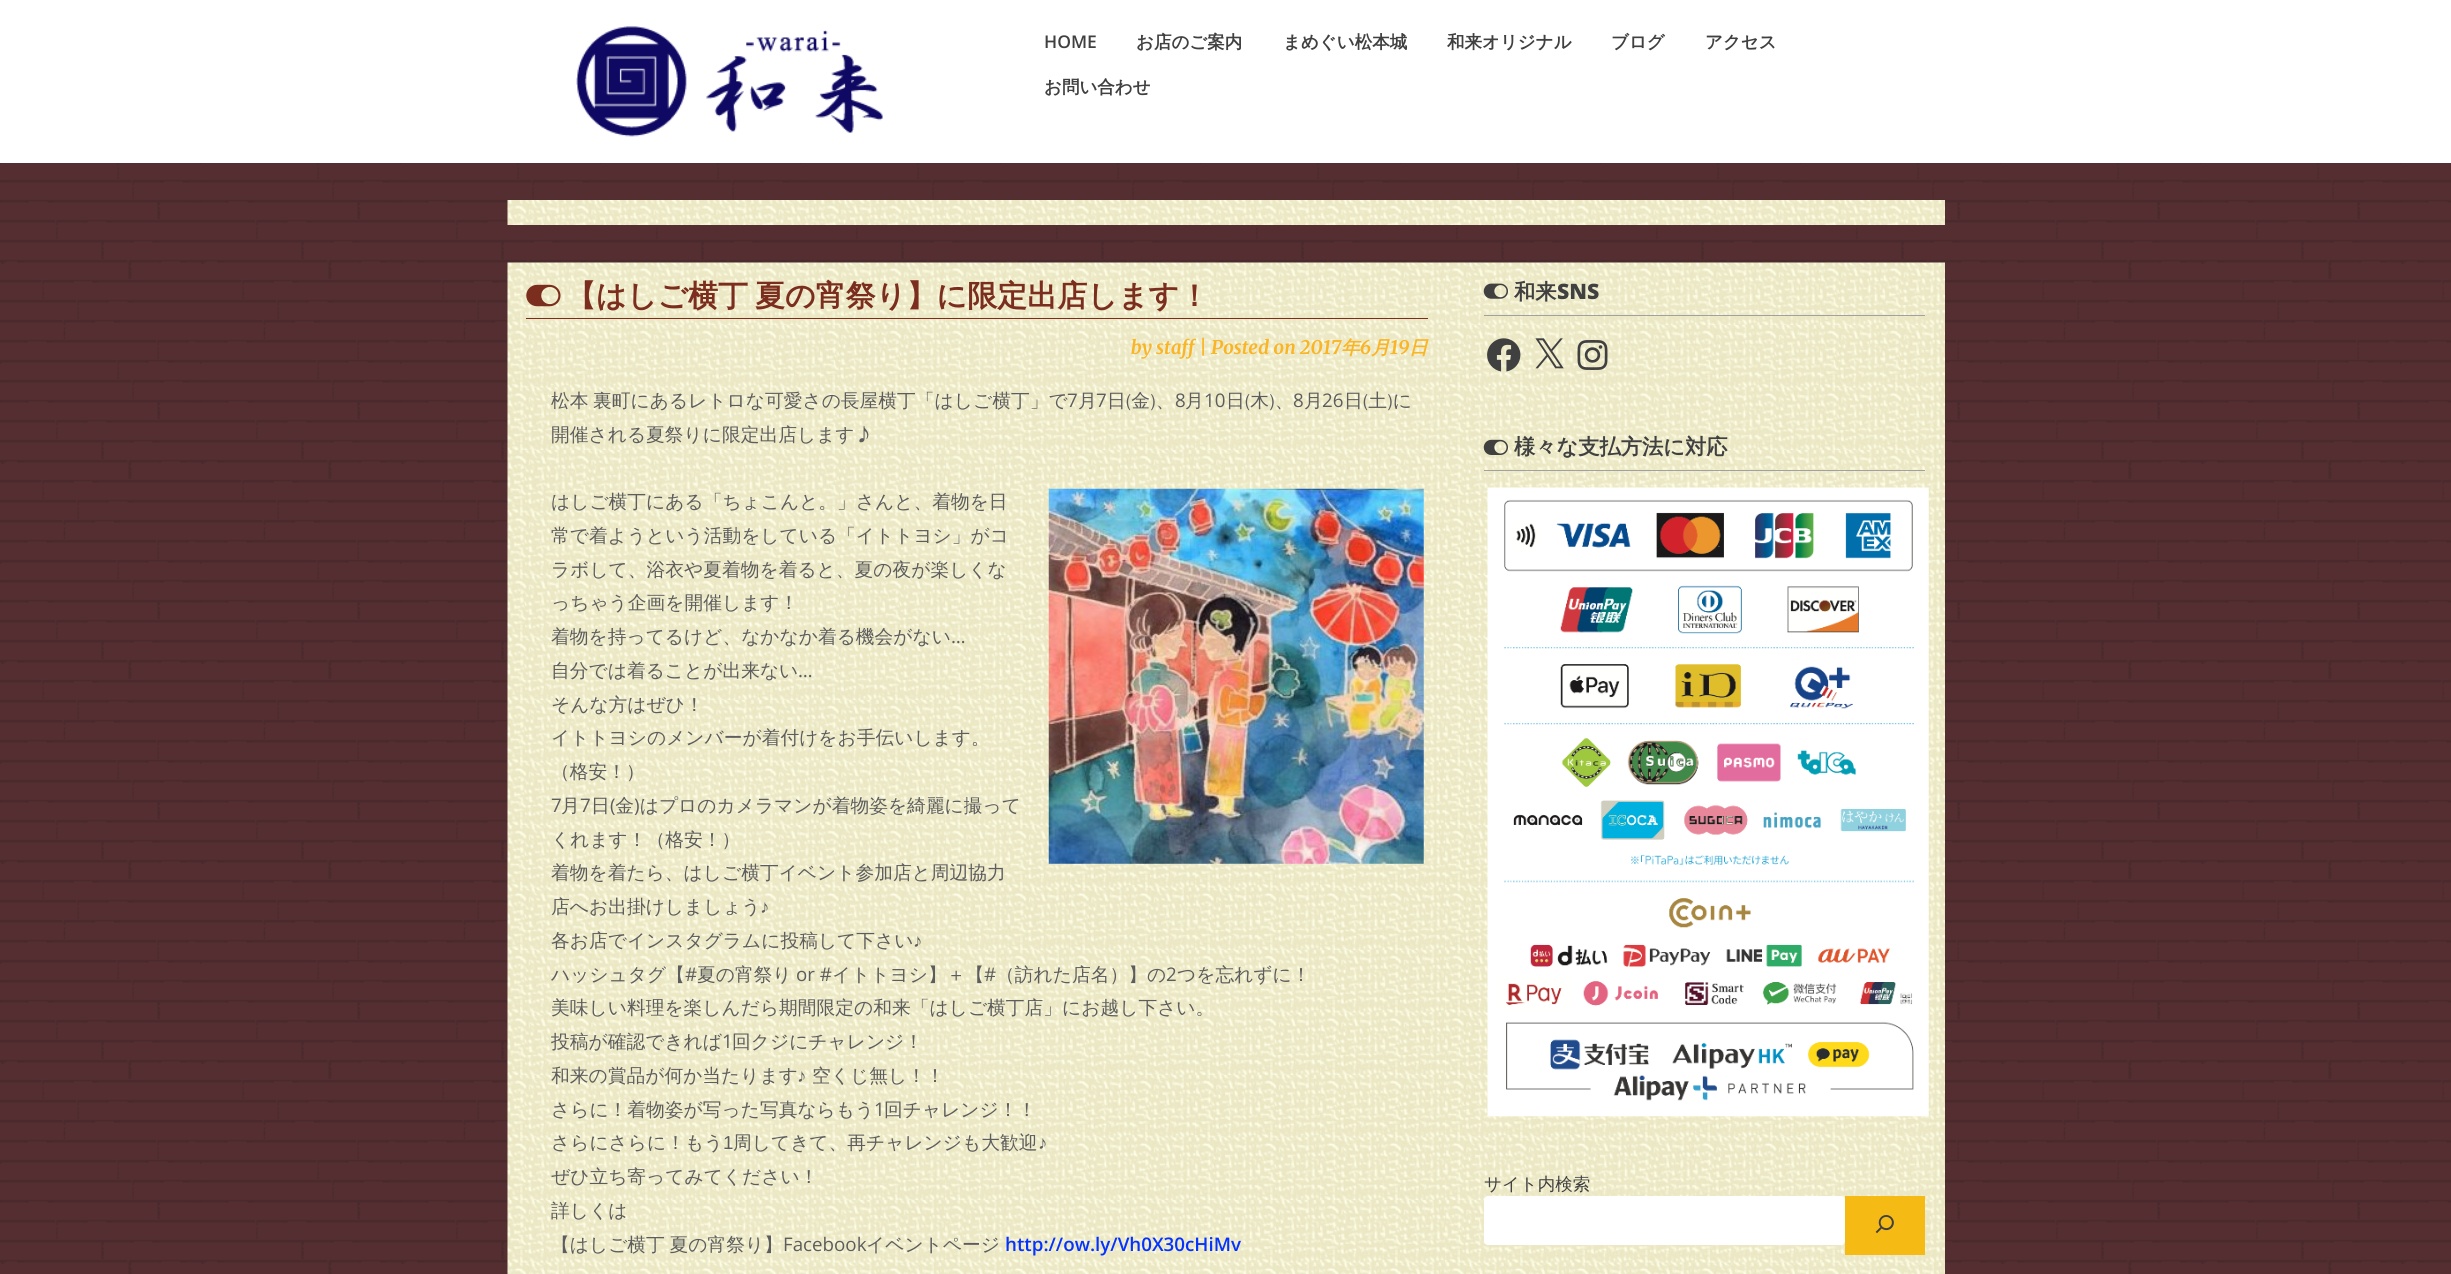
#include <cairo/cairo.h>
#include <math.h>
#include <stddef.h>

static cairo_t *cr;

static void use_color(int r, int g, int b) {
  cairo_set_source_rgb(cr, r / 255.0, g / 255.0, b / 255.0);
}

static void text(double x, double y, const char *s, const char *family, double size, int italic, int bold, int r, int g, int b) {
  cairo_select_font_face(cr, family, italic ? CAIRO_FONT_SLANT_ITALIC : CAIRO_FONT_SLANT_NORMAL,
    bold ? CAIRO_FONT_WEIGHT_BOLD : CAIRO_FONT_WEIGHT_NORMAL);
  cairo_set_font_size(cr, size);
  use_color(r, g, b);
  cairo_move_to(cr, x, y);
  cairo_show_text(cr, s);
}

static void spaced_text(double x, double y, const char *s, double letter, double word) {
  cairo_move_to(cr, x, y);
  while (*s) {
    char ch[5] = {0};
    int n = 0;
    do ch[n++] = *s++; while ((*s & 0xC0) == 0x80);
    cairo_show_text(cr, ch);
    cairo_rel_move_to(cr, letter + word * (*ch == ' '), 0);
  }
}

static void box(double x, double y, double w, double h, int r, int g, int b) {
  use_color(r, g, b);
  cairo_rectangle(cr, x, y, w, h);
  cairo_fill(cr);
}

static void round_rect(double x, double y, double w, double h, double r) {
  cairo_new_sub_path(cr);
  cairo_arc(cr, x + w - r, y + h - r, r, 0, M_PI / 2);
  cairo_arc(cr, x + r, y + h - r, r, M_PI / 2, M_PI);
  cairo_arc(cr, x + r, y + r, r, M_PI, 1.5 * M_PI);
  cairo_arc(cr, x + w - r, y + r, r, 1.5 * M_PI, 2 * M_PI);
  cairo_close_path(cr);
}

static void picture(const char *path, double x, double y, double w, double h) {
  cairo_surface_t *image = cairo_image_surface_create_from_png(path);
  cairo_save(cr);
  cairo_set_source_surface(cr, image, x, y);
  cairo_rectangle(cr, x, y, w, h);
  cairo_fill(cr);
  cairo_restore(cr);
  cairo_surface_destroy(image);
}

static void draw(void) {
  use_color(84, 46, 49);
  cairo_paint(cr);
  picture("img_01.png", 0, 163, 2451, 1111);
  box(0, 0, 2451, 163, 255, 255, 255);
  picture("img_02.png", 576, 26, 307, 111);
  picture("img_03.png", 507, 200, 1438, 25);
  picture("img_04.png", 507, 262, 1438, 1012);
  box(526, 318, 902, 1, 124, 46, 30);
  picture("img_05.png", 526, 284, 35, 23);
  picture("img_06.png", 1048, 488, 376, 376);
  box(1484, 315, 441, 1, 161, 161, 161);
  picture("img_07.png", 1483, 283, 25, 16);
  picture("img_08.png", 1487, 338, 34, 34);
  picture("img_09.png", 1535, 338, 29, 31);
  picture("img_10.png", 1577, 340, 31, 30);
  box(1484, 470, 441, 1, 161, 161, 161);
  picture("img_11.png", 1483, 439, 25, 16);
  picture("img_12.png", 1487, 487, 442, 630);
  use_color(255, 255, 255);
  round_rect(1484, 1196, 361, 49, 4);
  cairo_fill(cr);
  box(1845, 1196, 80, 59, 245, 186, 20);
  picture("img_13.png", 1875, 1215, 19, 19);
  text(1044, 48, "HOME", "Open Sans SemiBold", 17.5, 0, 0, 64, 64, 64);
  text(1136, 48, "お店のご案内", "WenQuanYi Zen Hei", 17.5, 0, 1, 64, 64, 64);
  text(1283, 48, "まめぐい松本城", "WenQuanYi Zen Hei", 17.5, 0, 1, 64, 64, 64);
  text(1447, 48, "和来オリジナル", "WenQuanYi Zen Hei", 17.5, 0, 1, 64, 64, 64);
  text(1611, 48, "ブログ", "WenQuanYi Zen Hei", 17.5, 0, 1, 64, 64, 64);
  text(1705, 48, "アクセス", "WenQuanYi Zen Hei", 17.5, 0, 1, 64, 64, 64);
  text(1044, 93, "お問い合わせ", "WenQuanYi Zen Hei", 17.5, 0, 1, 64, 64, 64);
  cairo_set_font_size(cr, 30);
  use_color(124, 46, 30);
  spaced_text(566, 306, "【はしご横丁 夏の宵祭り】に限定出店します！", 0, -2);
  text(1131, 354, "by staff", "Merriweather Light", 18.75, 1, 0, 250, 181, 38);
  text(1199, 354, "| Posted on 2017", "Merriweather Light", 18.75, 1, 0, 250, 181, 38);
  text(1341, 354, "年", "WenQuanYi Zen Hei", 18.75, 1, 1, 250, 181, 38);
  text(1360, 354, "6", "Merriweather Light", 18.75, 1, 0, 250, 181, 38);
  text(1371, 354, "月", "WenQuanYi Zen Hei", 18.75, 1, 1, 250, 181, 38);
  text(1390, 354, "19", "Merriweather Light", 18.75, 1, 0, 250, 181, 38);
  text(1409, 354, "日", "WenQuanYi Zen Hei", 18.75, 1, 1, 250, 181, 38);
  cairo_select_font_face(cr, "WenQuanYi Zen Hei Medium", CAIRO_FONT_SLANT_NORMAL, CAIRO_FONT_WEIGHT_NORMAL);
  use_color(93, 93, 93);
  spaced_text(551, 407, "松本 裏町にあるレトロな可愛さの長屋横丁「はしご横丁」で", 0, -1);
  text(1067, 407, "7", "Open Sans", 18.75, 0, 0, 93, 93, 93);
  text(1078, 407, "月", "WenQuanYi Zen Hei Medium", 18.75, 0, 0, 93, 93, 93);
  text(1096, 407, "7", "Open Sans", 18.75, 0, 0, 93, 93, 93);
  text(1107, 407, "日(金)、", "WenQuanYi Zen Hei Medium", 18.75, 0, 0, 93, 93, 93);
  text(1175, 407, "8", "Open Sans", 18.75, 0, 0, 93, 93, 93);
  text(1185, 407, "月", "WenQuanYi Zen Hei Medium", 18.75, 0, 0, 93, 93, 93);
  text(1204, 407, "10", "Open Sans", 18.75, 0, 0, 93, 93, 93);
  text(1226, 407, "日(木)、", "WenQuanYi Zen Hei Medium", 18.75, 0, 0, 93, 93, 93);
  text(1293, 407, "8", "Open Sans", 18.75, 0, 0, 93, 93, 93);
  text(1304, 407, "月", "WenQuanYi Zen Hei Medium", 18.75, 0, 0, 93, 93, 93);
  text(1322, 407, "26", "Open Sans", 18.75, 0, 0, 93, 93, 93);
  text(1344, 407, "日(土)に", "WenQuanYi Zen Hei Medium", 18.75, 0, 0, 93, 93, 93);
  text(551, 441, "開催される夏祭りに限定出店します♪", "WenQuanYi Zen Hei Medium", 18.75, 0, 0, 93, 93, 93);
  text(551, 508, "はしご横丁にある「ちょこんと。」さんと、着物を日", "WenQuanYi Zen Hei Medium", 18.75, 0, 0, 93, 93, 93);
  text(551, 542, "常で着ようという活動をしている「イトトヨシ」がコ", "WenQuanYi Zen Hei Medium", 18.75, 0, 0, 93, 93, 93);
  text(551, 576, "ラボして、浴衣や夏着物を着ると、夏の夜が楽しくな", "WenQuanYi Zen Hei Medium", 18.75, 0, 0, 93, 93, 93);
  text(551, 609, "っちゃう企画を開催します！", "WenQuanYi Zen Hei Medium", 18.75, 0, 0, 93, 93, 93);
  text(551, 643, "着物を持ってるけど、なかなか着る機会がない", "WenQuanYi Zen Hei Medium", 18.75, 0, 0, 93, 93, 93);
  text(951, 643, "…", "Open Sans", 18.75, 0, 0, 93, 93, 93);
  text(551, 677, "自分では着ることが出来ない", "WenQuanYi Zen Hei Medium", 18.75, 0, 0, 93, 93, 93);
  text(798, 677, "…", "Open Sans", 18.75, 0, 0, 93, 93, 93);
  text(551, 711, "そんな方はぜひ！", "WenQuanYi Zen Hei Medium", 18.75, 0, 0, 93, 93, 93);
  text(551, 744, "イトトヨシのメンバーが着付けをお手伝いします。", "WenQuanYi Zen Hei Medium", 18.75, 0, 0, 93, 93, 93);
  text(551, 778, "（格安！）", "WenQuanYi Zen Hei Medium", 18.75, 0, 0, 93, 93, 93);
  text(551, 812, "7", "Open Sans", 18.75, 0, 0, 93, 93, 93);
  text(561, 812, "月", "WenQuanYi Zen Hei Medium", 18.75, 0, 0, 93, 93, 93);
  text(580, 812, "7", "Open Sans", 18.75, 0, 0, 93, 93, 93);
  text(591, 812, "日 金 はプロのカメラマンが着物姿を綺麗に撮って", "WenQuanYi Zen Hei Medium", 18.75, 0, 0, 93, 93, 93);
  text(610, 812, "(", "Open Sans", 18.75, 0, 0, 93, 93, 93);
  text(634, 812, ")", "Open Sans", 18.75, 0, 0, 93, 93, 93);
  text(551, 846, "くれます！（格安！）", "WenQuanYi Zen Hei Medium", 18.75, 0, 0, 93, 93, 93);
  text(551, 879, "着物を着たら、はしご横丁イベント参加店と周辺協力", "WenQuanYi Zen Hei Medium", 18.75, 0, 0, 93, 93, 93);
  text(551, 913, "店へお出掛けしましょう", "WenQuanYi Zen Hei Medium", 18.75, 0, 0, 93, 93, 93);
  text(760, 913, "♪", "Liberation Sans", 18.75, 0, 0, 93, 93, 93);
  text(551, 947, "各お店でインスタグラムに投稿して下さい", "WenQuanYi Zen Hei Medium", 18.75, 0, 0, 93, 93, 93);
  text(913, 947, "♪", "Liberation Sans", 18.75, 0, 0, 93, 93, 93);
  text(551, 981, "ハッシュタグ【", "WenQuanYi Zen Hei Medium", 18.75, 0, 0, 93, 93, 93);
  text(685, 981, "#", "Open Sans", 18.75, 0, 0, 93, 93, 93);
  text(697, 981, "夏の宵祭り", "WenQuanYi Zen Hei Medium", 18.75, 0, 0, 93, 93, 93);
  text(796, 981, "or #", "Open Sans", 18.75, 0, 0, 93, 93, 93);
  text(832, 981, "イトトヨシ】＋【", "WenQuanYi Zen Hei Medium", 18.75, 0, 0, 93, 93, 93);
  text(984, 981, "#", "Open Sans", 18.75, 0, 0, 93, 93, 93);
  text(996, 981, "（訪れた店名）】の", "WenQuanYi Zen Hei Medium", 18.75, 0, 0, 93, 93, 93);
  text(1166, 981, "2", "Open Sans", 18.75, 0, 0, 93, 93, 93);
  text(1177, 981, "つを忘れずに！", "WenQuanYi Zen Hei Medium", 18.75, 0, 0, 93, 93, 93);
  text(551, 1014, "美味しい料理を楽しんだら期間限定の和来「はしご横丁店」にお越し下さい。", "WenQuanYi Zen Hei Medium", 18.75, 0, 0, 93, 93, 93);
  text(551, 1048, "投稿が確認できれば", "WenQuanYi Zen Hei Medium", 18.75, 0, 0, 93, 93, 93);
  text(722, 1048, "1", "Open Sans", 18.75, 0, 0, 93, 93, 93);
  text(732, 1048, "回クジにチャレンジ！", "WenQuanYi Zen Hei Medium", 18.75, 0, 0, 93, 93, 93);
  text(551, 1082, "和来の賞品が何か当たります", "WenQuanYi Zen Hei Medium", 18.75, 0, 0, 93, 93, 93);
  text(797, 1082, "♪", "Liberation Sans", 18.75, 0, 0, 93, 93, 93);
  text(812, 1082, "空くじ無し！！", "WenQuanYi Zen Hei Medium", 18.75, 0, 0, 93, 93, 93);
  text(551, 1116, "さらに！着物姿が写った写真ならもう", "WenQuanYi Zen Hei Medium", 18.75, 0, 0, 93, 93, 93);
  text(874, 1116, "1", "Open Sans", 18.75, 0, 0, 93, 93, 93);
  text(884, 1116, "回チャレンジ！！", "WenQuanYi Zen Hei Medium", 18.75, 0, 0, 93, 93, 93);
  text(551, 1149, "さらにさらに！もう", "WenQuanYi Zen Hei Medium", 18.75, 0, 0, 93, 93, 93);
  text(723, 1149, "1", "Liberation Sans", 18.75, 0, 0, 93, 93, 93);
  text(733, 1149, "周してきて、再チャレンジも大歓迎", "WenQuanYi Zen Hei Medium", 18.75, 0, 0, 93, 93, 93);
  text(1038, 1149, "♪", "Liberation Sans", 18.75, 0, 0, 93, 93, 93);
  text(551, 1183, "ぜひ立ち寄ってみてください！", "WenQuanYi Zen Hei Medium", 18.75, 0, 0, 93, 93, 93);
  text(551, 1217, "詳しくは", "WenQuanYi Zen Hei Medium", 18.75, 0, 0, 93, 93, 93);
  spaced_text(551, 1251, "【はしご横丁 夏の宵祭り】", 0, -1);
  text(783, 1251, "Facebook", "Open Sans", 18.75, 0, 0, 93, 93, 93);
  text(866, 1251, "イベントページ", "WenQuanYi Zen Hei Medium", 18.75, 0, 0, 93, 93, 93);
  text(1005, 1251, "http://ow.ly/Vh0X30cHiMv", "Open Sans SemiBold", 18.75, 0, 0, 4, 51, 255);
  text(1514, 299, "和来", "WenQuanYi Zen Hei", 21.25, 0, 1, 64, 64, 64);
  text(1557, 299, "SNS", "Open Sans ExtraBold", 21.25, 0, 0, 64, 64, 64);
  text(1514, 454, "様々な支払方法に対応", "WenQuanYi Zen Hei", 21.25, 0, 1, 64, 64, 64);
  text(1484, 1190, "サイト内検索", "WenQuanYi Zen Hei Medium", 17.5, 0, 0, 64, 64, 64);
}

int main(void) {
  cairo_surface_t *surface = cairo_image_surface_create(CAIRO_FORMAT_RGB24, 2451, 1274);
  cr = cairo_create(surface);
  cairo_font_options_t *options = cairo_font_options_create();
  cairo_font_options_set_hint_metrics(options, CAIRO_HINT_METRICS_OFF);
  cairo_font_options_set_hint_style(options, CAIRO_HINT_STYLE_NONE);
  cairo_set_font_options(cr, options);
  cairo_set_miter_limit(cr, 4);
  draw();
  cairo_surface_write_to_png(surface, "out.png");
  cairo_font_options_destroy(options);
  cairo_destroy(cr);
  cairo_surface_destroy(surface);
  return 0;
}
